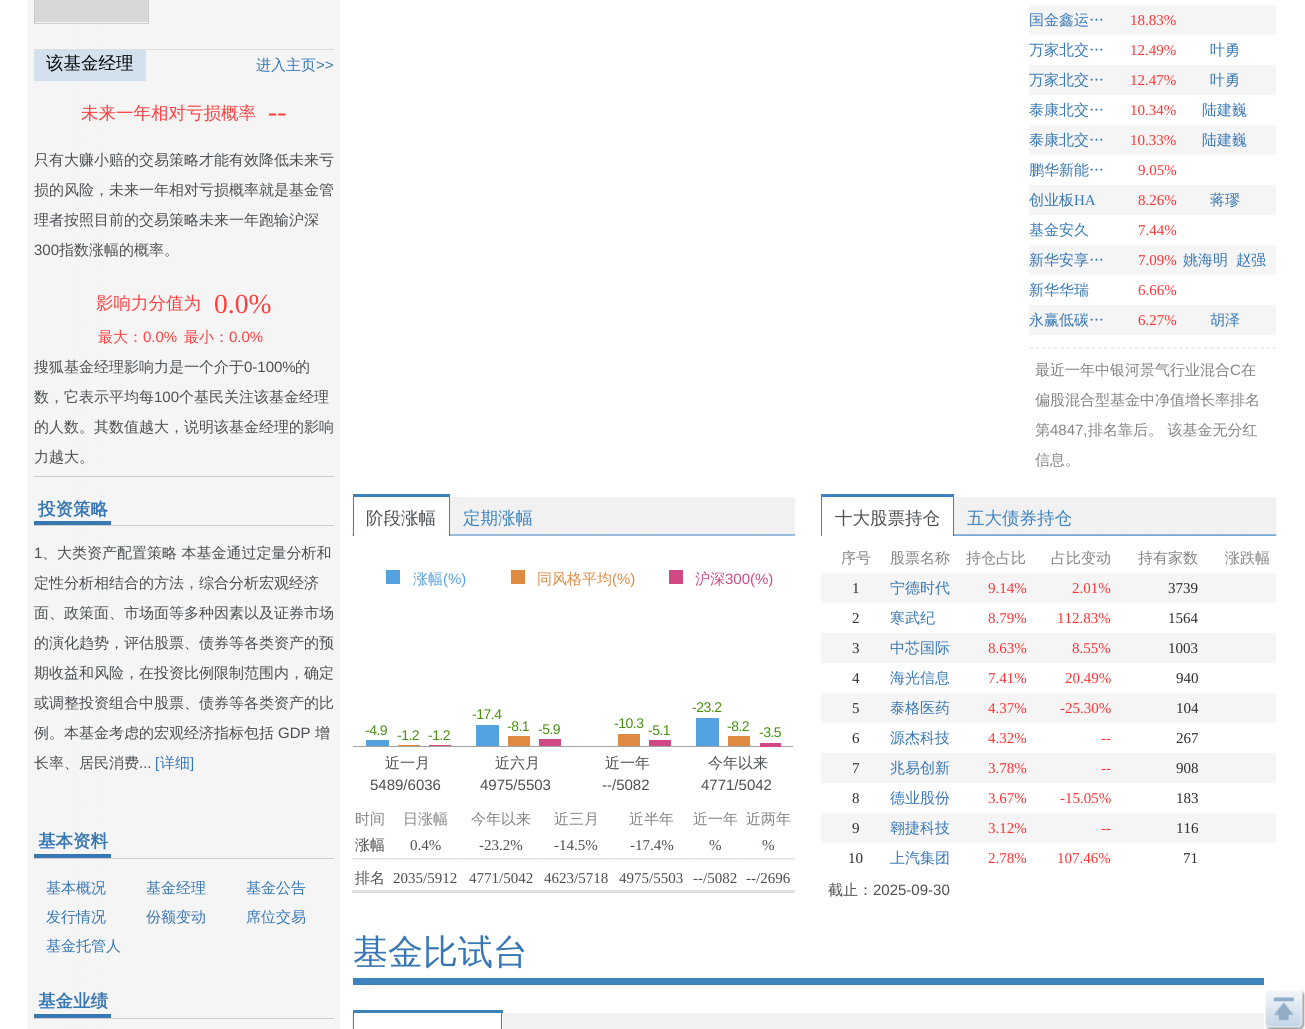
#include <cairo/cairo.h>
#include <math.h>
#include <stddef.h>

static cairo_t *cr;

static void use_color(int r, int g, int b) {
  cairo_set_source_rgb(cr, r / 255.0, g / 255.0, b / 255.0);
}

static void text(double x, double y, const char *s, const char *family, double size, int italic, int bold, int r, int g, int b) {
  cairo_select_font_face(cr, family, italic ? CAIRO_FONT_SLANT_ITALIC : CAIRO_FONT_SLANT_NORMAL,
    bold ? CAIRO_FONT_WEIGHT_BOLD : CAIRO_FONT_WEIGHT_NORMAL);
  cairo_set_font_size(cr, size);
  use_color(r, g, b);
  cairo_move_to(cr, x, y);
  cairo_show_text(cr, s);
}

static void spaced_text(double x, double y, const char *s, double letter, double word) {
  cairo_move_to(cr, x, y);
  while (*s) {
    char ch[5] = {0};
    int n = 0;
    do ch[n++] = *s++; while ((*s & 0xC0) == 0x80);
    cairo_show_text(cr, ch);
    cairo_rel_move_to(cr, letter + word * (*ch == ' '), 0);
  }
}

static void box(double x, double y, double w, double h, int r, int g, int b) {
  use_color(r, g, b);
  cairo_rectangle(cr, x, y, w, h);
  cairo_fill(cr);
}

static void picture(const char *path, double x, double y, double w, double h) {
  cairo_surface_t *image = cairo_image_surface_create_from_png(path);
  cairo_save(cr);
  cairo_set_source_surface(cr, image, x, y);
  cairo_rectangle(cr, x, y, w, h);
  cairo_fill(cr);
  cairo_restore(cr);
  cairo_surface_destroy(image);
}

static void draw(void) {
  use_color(255, 255, 255);
  cairo_paint(cr);
  picture("img_01.png", 27, 0, 313, 1029);
  cairo_rectangle(cr, 34.5, -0.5, 114, 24);
  use_color(204, 204, 204);
  cairo_set_line_width(cr, 1);
  cairo_stroke(cr);
  box(35, 0, 113, 22, 215, 215, 215);
  box(34, 49, 300, 1, 222, 221, 220);
  box(34, 50, 112, 31, 211, 225, 239);
  box(34, 476, 300, 1, 205, 205, 205);
  box(34, 525, 300, 1, 205, 205, 205);
  box(34, 521, 77, 4, 55, 120, 178);
  box(34, 858, 300, 1, 205, 205, 205);
  box(34, 854, 77, 4, 55, 120, 178);
  box(34, 1018, 300, 1, 205, 205, 205);
  box(34, 1014, 77, 4, 55, 120, 178);
  box(1029, 5, 247, 30, 245, 245, 245);
  box(1029, 65, 247, 30, 245, 245, 245);
  box(1029, 125, 247, 30, 245, 245, 245);
  box(1029, 185, 247, 30, 245, 245, 245);
  box(1029, 245, 247, 30, 245, 245, 245);
  box(1029, 305, 247, 30, 245, 245, 245);
  cairo_new_path(cr);
  cairo_move_to(cr, 1029, 348);
  cairo_line_to(cr, 1276, 348);
  use_color(229, 228, 227);
  cairo_set_line_width(cr, 1.2);
  cairo_set_dash(cr, (double[]){3.75, 2.5}, 2, 0);
  cairo_stroke(cr);
  picture("img_02.png", 352, 497, 443, 39);
  box(354, 497, 95, 39, 255, 255, 255);
  box(353, 494, 97, 3, 61, 130, 189);
  box(449, 494, 1, 42, 61, 130, 189);
  box(353, 494, 1, 42, 61, 130, 189);
  box(386, 570, 14, 14, 84, 162, 224);
  box(511, 570, 14, 14, 223, 138, 67);
  box(669, 570, 14, 14, 208, 73, 133);
  box(366, 740, 23, 6, 84, 162, 224);
  box(398, 745, 22, 1, 223, 138, 67);
  box(429, 745, 22, 1, 208, 73, 133);
  box(353, 746, 440, 1, 163, 163, 163);
  box(476, 725, 23, 21, 84, 162, 224);
  box(508, 736, 22, 10, 223, 138, 67);
  box(539, 739, 22, 7, 208, 73, 133);
  box(618, 734, 22, 12, 223, 138, 67);
  box(649, 740, 22, 6, 208, 73, 133);
  box(696, 718, 23, 28, 84, 162, 224);
  box(728, 736, 22, 10, 223, 138, 67);
  box(760, 743, 21, 4, 208, 73, 133);
  picture("img_03.png", 352, 858, 36, 2);
  picture("img_04.png", 387, 858, 76, 2);
  picture("img_05.png", 462, 858, 77, 2);
  picture("img_06.png", 539, 858, 75, 2);
  picture("img_06.png", 614, 858, 75, 2);
  picture("img_07.png", 689, 858, 54, 2);
  picture("img_08.png", 742, 858, 53, 2);
  box(352, 890, 443, 3, 224, 224, 224);
  picture("img_09.png", 954, 497, 323, 39);
  picture("img_10.png", 954, 534, 323, 2);
  box(821, 494, 133, 3, 61, 130, 189);
  box(953, 494, 1, 42, 61, 130, 189);
  box(821, 494, 1, 42, 61, 130, 189);
  box(821, 573, 455, 30, 245, 245, 245);
  box(821, 633, 455, 30, 245, 245, 245);
  box(821, 693, 455, 30, 245, 245, 245);
  box(821, 753, 455, 30, 245, 245, 245);
  box(821, 813, 455, 30, 245, 245, 245);
  box(353, 978, 911, 7, 61, 131, 189);
  box(352, 1013, 912, 16, 241, 241, 241);
  box(354, 1013, 149, 16, 255, 255, 255);
  box(353, 1010, 150, 3, 61, 130, 189);
  box(501, 1010, 1, 19, 61, 130, 189);
  box(353, 1010, 1, 19, 61, 130, 189);
  picture("img_11.png", 1265, 990, 40, 39);
  text(46, 69, "该基金经理", "WenQuanYi Zen Hei Medium", 17.5, 0, 0, 1, 1, 1);
  text(256, 70, "进入主页", "WenQuanYi Zen Hei Medium", 15, 0, 0, 55, 119, 180);
  text(316, 70, ">>", "Liberation Sans", 15, 0, 0, 55, 119, 180);
  text(81, 119, "未来一年相对亏损概率", "WenQuanYi Zen Hei Medium", 17.5, 0, 0, 255, 63, 63);
  text(268, 121, "--", "Liberation Serif", 27.5, 0, 0, 255, 63, 63);
  text(34, 165, "只有大赚小赔的交易策略才能有效降低未来亏", "WenQuanYi Zen Hei Medium", 15, 0, 0, 74, 79, 83);
  text(34, 195, "损的风险，未来一年相对亏损概率就是基金管", "WenQuanYi Zen Hei Medium", 15, 0, 0, 74, 79, 83);
  text(34, 225, "理者按照目前的交易策略未来一年跑输沪深", "WenQuanYi Zen Hei Medium", 15, 0, 0, 74, 79, 83);
  text(34, 255, "300", "Liberation Sans", 15, 0, 0, 74, 79, 83);
  text(59, 255, "指数涨幅的概率。", "WenQuanYi Zen Hei Medium", 15, 0, 0, 74, 79, 83);
  text(96, 309, "影响力分值为", "WenQuanYi Zen Hei Medium", 17.5, 0, 0, 255, 63, 63);
  text(214, 313, "0.0%", "Liberation Serif", 27.5, 0, 0, 255, 63, 63);
  text(98, 342, "最大：", "WenQuanYi Zen Hei Medium", 15, 0, 0, 255, 63, 63);
  text(143, 342, "0.0%", "Liberation Sans", 15, 0, 0, 255, 63, 63);
  text(184, 342, "最小：", "WenQuanYi Zen Hei Medium", 15, 0, 0, 255, 63, 63);
  text(229, 342, "0.0%", "Liberation Sans", 15, 0, 0, 255, 63, 63);
  text(34, 372, "搜狐基金经理影响力是一个介于", "WenQuanYi Zen Hei Medium", 15, 0, 0, 74, 79, 83);
  text(244, 372, "0-100%", "Liberation Sans", 15, 0, 0, 74, 79, 83);
  text(295, 372, "的", "WenQuanYi Zen Hei Medium", 15, 0, 0, 74, 79, 83);
  text(34, 402, "数，它表示平均每", "WenQuanYi Zen Hei Medium", 15, 0, 0, 74, 79, 83);
  text(154, 402, "100", "Liberation Sans", 15, 0, 0, 74, 79, 83);
  text(179, 402, "个基民关注该基金经理", "WenQuanYi Zen Hei Medium", 15, 0, 0, 74, 79, 83);
  text(34, 432, "的人数。其数值越大，说明该基金经理的影响", "WenQuanYi Zen Hei Medium", 15, 0, 0, 74, 79, 83);
  text(34, 462, "力越大。", "WenQuanYi Zen Hei Medium", 15, 0, 0, 74, 79, 83);
  text(38, 515, "投资策略", "WenQuanYi Zen Hei", 17.5, 0, 1, 55, 119, 180);
  text(34, 558, "1", "Liberation Sans", 15, 0, 0, 74, 79, 83);
  text(42, 558, "、大类资产配置策略 本基金通过定量分析和", "WenQuanYi Zen Hei Medium", 15, 0, 0, 74, 79, 83);
  text(34, 588, "定性分析相结合的方法，综合分析宏观经济", "WenQuanYi Zen Hei Medium", 15, 0, 0, 74, 79, 83);
  text(34, 618, "面、政策面、市场面等多种因素以及证券市场", "WenQuanYi Zen Hei Medium", 15, 0, 0, 74, 79, 83);
  text(34, 648, "的演化趋势，评估股票、债券等各类资产的预", "WenQuanYi Zen Hei Medium", 15, 0, 0, 74, 79, 83);
  text(34, 678, "期收益和风险，在投资比例限制范围内，确定", "WenQuanYi Zen Hei Medium", 15, 0, 0, 74, 79, 83);
  text(34, 708, "或调整投资组合中股票、债券等各类资产的比", "WenQuanYi Zen Hei Medium", 15, 0, 0, 74, 79, 83);
  text(34, 738, "例。本基金考虑的宏观经济指标包括", "WenQuanYi Zen Hei Medium", 15, 0, 0, 74, 79, 83);
  text(278, 738, "GDP", "Liberation Sans", 15, 0, 0, 74, 79, 83);
  text(315, 738, "增", "WenQuanYi Zen Hei Medium", 15, 0, 0, 74, 79, 83);
  text(34, 768, "长率、居民消费", "WenQuanYi Zen Hei Medium", 15, 0, 0, 74, 79, 83);
  text(139, 768, "...", "Liberation Sans", 15, 0, 0, 74, 79, 83);
  text(155, 768, "[", "Liberation Sans", 15, 0, 0, 55, 119, 180);
  text(160, 768, "详细", "WenQuanYi Zen Hei Medium", 15, 0, 0, 55, 119, 180);
  text(190, 768, "]", "Liberation Sans", 15, 0, 0, 55, 119, 180);
  text(38, 847, "基本资料", "WenQuanYi Zen Hei", 17.5, 0, 1, 55, 119, 180);
  text(46, 893, "基本概况", "WenQuanYi Zen Hei Medium", 15, 0, 0, 55, 119, 180);
  text(146, 893, "基金经理", "WenQuanYi Zen Hei Medium", 15, 0, 0, 55, 119, 180);
  text(246, 893, "基金公告", "WenQuanYi Zen Hei Medium", 15, 0, 0, 55, 119, 180);
  text(46, 922, "发行情况", "WenQuanYi Zen Hei Medium", 15, 0, 0, 55, 119, 180);
  text(146, 922, "份额变动", "WenQuanYi Zen Hei Medium", 15, 0, 0, 55, 119, 180);
  text(246, 922, "席位交易", "WenQuanYi Zen Hei Medium", 15, 0, 0, 55, 119, 180);
  text(46, 951, "基金托管人", "WenQuanYi Zen Hei Medium", 15, 0, 0, 55, 119, 180);
  text(38, 1007, "基金业绩", "WenQuanYi Zen Hei", 17.5, 0, 1, 55, 119, 180);
  text(1029, 25, "国金鑫运…", "WenQuanYi Zen Hei Medium", 15, 0, 0, 55, 119, 180);
  text(1130, 25, "18.83%", "Liberation Serif", 15, 0, 0, 255, 51, 51);
  text(1029, 55, "万家北交…", "WenQuanYi Zen Hei Medium", 15, 0, 0, 55, 119, 180);
  text(1130, 55, "12.49%", "Liberation Serif", 15, 0, 0, 255, 51, 51);
  text(1210, 55, "叶勇", "WenQuanYi Zen Hei Medium", 15, 0, 0, 55, 119, 180);
  text(1029, 85, "万家北交…", "WenQuanYi Zen Hei Medium", 15, 0, 0, 55, 119, 180);
  text(1130, 85, "12.47%", "Liberation Serif", 15, 0, 0, 255, 51, 51);
  text(1210, 85, "叶勇", "WenQuanYi Zen Hei Medium", 15, 0, 0, 55, 119, 180);
  text(1029, 115, "泰康北交…", "WenQuanYi Zen Hei Medium", 15, 0, 0, 55, 119, 180);
  text(1130, 115, "10.34%", "Liberation Serif", 15, 0, 0, 255, 51, 51);
  text(1202, 115, "陆建巍", "WenQuanYi Zen Hei Medium", 15, 0, 0, 55, 119, 180);
  text(1029, 145, "泰康北交…", "WenQuanYi Zen Hei Medium", 15, 0, 0, 55, 119, 180);
  text(1130, 145, "10.33%", "Liberation Serif", 15, 0, 0, 255, 51, 51);
  text(1202, 145, "陆建巍", "WenQuanYi Zen Hei Medium", 15, 0, 0, 55, 119, 180);
  text(1029, 175, "鹏华新能…", "WenQuanYi Zen Hei Medium", 15, 0, 0, 55, 119, 180);
  text(1138, 175, "9.05%", "Liberation Serif", 15, 0, 0, 255, 51, 51);
  text(1029, 205, "创业板", "WenQuanYi Zen Hei Medium", 15, 0, 0, 55, 119, 180);
  text(1074, 205, "HA", "Liberation Serif", 15, 0, 0, 55, 119, 180);
  text(1138, 205, "8.26%", "Liberation Serif", 15, 0, 0, 255, 51, 51);
  text(1210, 205, "蒋璆", "WenQuanYi Zen Hei Medium", 15, 0, 0, 55, 119, 180);
  text(1029, 235, "基金安久", "WenQuanYi Zen Hei Medium", 15, 0, 0, 55, 119, 180);
  text(1138, 235, "7.44%", "Liberation Serif", 15, 0, 0, 255, 51, 51);
  text(1029, 265, "新华安享…", "WenQuanYi Zen Hei Medium", 15, 0, 0, 55, 119, 180);
  text(1138, 265, "7.09%", "Liberation Serif", 15, 0, 0, 255, 51, 51);
  text(1183, 265, "姚海明", "WenQuanYi Zen Hei Medium", 15, 0, 0, 55, 119, 180);
  text(1236, 265, "赵强", "WenQuanYi Zen Hei Medium", 15, 0, 0, 55, 119, 180);
  text(1029, 295, "新华华瑞", "WenQuanYi Zen Hei Medium", 15, 0, 0, 55, 119, 180);
  text(1138, 295, "6.66%", "Liberation Serif", 15, 0, 0, 255, 51, 51);
  text(1029, 325, "永赢低碳…", "WenQuanYi Zen Hei Medium", 15, 0, 0, 55, 119, 180);
  text(1138, 325, "6.27%", "Liberation Serif", 15, 0, 0, 255, 51, 51);
  text(1210, 325, "胡泽", "WenQuanYi Zen Hei Medium", 15, 0, 0, 55, 119, 180);
  text(1035, 375, "最近一年中银河景气行业混合", "WenQuanYi Zen Hei Medium", 15, 0, 0, 131, 131, 131);
  text(1230, 375, "C", "Liberation Sans", 15, 0, 0, 131, 131, 131);
  text(1241, 375, "在", "WenQuanYi Zen Hei Medium", 15, 0, 0, 131, 131, 131);
  text(1035, 405, "偏股混合型基金中净值增长率排名", "WenQuanYi Zen Hei Medium", 15, 0, 0, 131, 131, 131);
  text(1035, 435, "第", "WenQuanYi Zen Hei Medium", 15, 0, 0, 131, 131, 131);
  text(1050, 435, "4847,", "Liberation Sans", 15, 0, 0, 131, 131, 131);
  text(1088, 435, "排名靠后。 该基金无分红", "WenQuanYi Zen Hei Medium", 15, 0, 0, 131, 131, 131);
  text(1035, 465, "信息。", "WenQuanYi Zen Hei Medium", 15, 0, 0, 131, 131, 131);
  text(366, 524, "阶段涨幅", "WenQuanYi Zen Hei Medium", 17.5, 0, 0, 74, 79, 83);
  text(463, 524, "定期涨幅", "WenQuanYi Zen Hei Medium", 17.5, 0, 0, 61, 131, 189);
  text(413, 584, "涨幅", "WenQuanYi Zen Hei Medium", 15, 0, 0, 84, 162, 224);
  text(443, 584, "(%)", "Liberation Sans", 15, 0, 0, 84, 162, 224);
  text(537, 584, "同风格平均", "WenQuanYi Zen Hei Medium", 15, 0, 0, 223, 138, 67);
  text(612, 584, "(%)", "Liberation Sans", 15, 0, 0, 223, 138, 67);
  text(695, 584, "沪深", "WenQuanYi Zen Hei Medium", 15, 0, 0, 208, 73, 133);
  text(725, 584, "300(%)", "Liberation Sans", 15, 0, 0, 208, 73, 133);
  cairo_set_font_size(cr, 14);
  use_color(71, 145, 17);
  spaced_text(365, 735, "-4.9", -0.5, 0);
  spaced_text(397, 740, "-1.2", -0.5, 0);
  spaced_text(428, 740, "-1.2", -0.5, 0);
  text(385, 768, "近一月", "WenQuanYi Zen Hei Medium", 15, 0, 0, 74, 79, 83);
  text(370, 790, "5489/6036", "Liberation Sans", 15, 0, 0, 74, 79, 83);
  cairo_set_font_size(cr, 14);
  use_color(71, 145, 17);
  spaced_text(472, 719, "-17.4", -0.5, 0);
  spaced_text(507, 731, "-8.1", -0.5, 0);
  spaced_text(538, 734, "-5.9", -0.5, 0);
  text(495, 768, "近六月", "WenQuanYi Zen Hei Medium", 15, 0, 0, 74, 79, 83);
  text(480, 790, "4975/5503", "Liberation Sans", 15, 0, 0, 74, 79, 83);
  cairo_set_font_size(cr, 14);
  use_color(71, 145, 17);
  spaced_text(614, 728, "-10.3", -0.5, 0);
  spaced_text(648, 735, "-5.1", -0.5, 0);
  text(605, 768, "近一年", "WenQuanYi Zen Hei Medium", 15, 0, 0, 74, 79, 83);
  text(602, 790, "--/5082", "Liberation Sans", 15, 0, 0, 74, 79, 83);
  cairo_set_font_size(cr, 14);
  use_color(71, 145, 17);
  spaced_text(692, 712, "-23.2", -0.5, 0);
  spaced_text(727, 731, "-8.2", -0.5, 0);
  spaced_text(759, 737, "-3.5", -0.5, 0);
  text(708, 768, "今年以来", "WenQuanYi Zen Hei Medium", 15, 0, 0, 74, 79, 83);
  text(701, 790, "4771/5042", "Liberation Sans", 15, 0, 0, 74, 79, 83);
  text(355, 824, "时间", "WenQuanYi Zen Hei Medium", 15, 0, 0, 131, 131, 131);
  text(403, 824, "日涨幅", "WenQuanYi Zen Hei Medium", 15, 0, 0, 131, 131, 131);
  text(471, 824, "今年以来", "WenQuanYi Zen Hei Medium", 15, 0, 0, 131, 131, 131);
  text(554, 824, "近三月", "WenQuanYi Zen Hei Medium", 15, 0, 0, 131, 131, 131);
  text(629, 824, "近半年", "WenQuanYi Zen Hei Medium", 15, 0, 0, 131, 131, 131);
  text(693, 824, "近一年", "WenQuanYi Zen Hei Medium", 15, 0, 0, 131, 131, 131);
  text(746, 824, "近两年", "WenQuanYi Zen Hei Medium", 15, 0, 0, 131, 131, 131);
  text(355, 850, "涨幅", "WenQuanYi Zen Hei Medium", 15, 0, 0, 74, 79, 83);
  text(410, 850, "0.4%", "Liberation Serif", 15, 0, 0, 74, 79, 83);
  text(479, 850, "-23.2%", "Liberation Serif", 15, 0, 0, 74, 79, 83);
  text(554, 850, "-14.5%", "Liberation Serif", 15, 0, 0, 74, 79, 83);
  text(630, 850, "-17.4%", "Liberation Serif", 15, 0, 0, 74, 79, 83);
  text(709, 850, "%", "Liberation Serif", 15, 0, 0, 74, 79, 83);
  text(762, 850, "%", "Liberation Serif", 15, 0, 0, 74, 79, 83);
  text(355, 883, "排名", "WenQuanYi Zen Hei Medium", 15, 0, 0, 74, 79, 83);
  text(393, 883, "2035/5912", "Liberation Serif", 15, 0, 0, 74, 79, 83);
  text(469, 883, "4771/5042", "Liberation Serif", 15, 0, 0, 74, 79, 83);
  text(544, 883, "4623/5718", "Liberation Serif", 15, 0, 0, 74, 79, 83);
  text(619, 883, "4975/5503", "Liberation Serif", 15, 0, 0, 74, 79, 83);
  text(693, 883, "--/5082", "Liberation Serif", 15, 0, 0, 74, 79, 83);
  text(746, 883, "--/2696", "Liberation Serif", 15, 0, 0, 74, 79, 83);
  text(835, 524, "十大股票持仓", "WenQuanYi Zen Hei Medium", 17.5, 0, 0, 74, 79, 83);
  text(967, 524, "五大债券持仓", "WenQuanYi Zen Hei Medium", 17.5, 0, 0, 61, 131, 189);
  text(841, 563, "序号", "WenQuanYi Zen Hei Medium", 15, 0, 0, 131, 131, 131);
  text(890, 563, "股票名称", "WenQuanYi Zen Hei Medium", 15, 0, 0, 131, 131, 131);
  text(966, 563, "持仓占比", "WenQuanYi Zen Hei Medium", 15, 0, 0, 131, 131, 131);
  text(1051, 563, "占比变动", "WenQuanYi Zen Hei Medium", 15, 0, 0, 131, 131, 131);
  text(1138, 563, "持有家数", "WenQuanYi Zen Hei Medium", 15, 0, 0, 131, 131, 131);
  text(1225, 563, "涨跌幅", "WenQuanYi Zen Hei Medium", 15, 0, 0, 131, 131, 131);
  text(852, 593, "1", "Liberation Serif", 15, 0, 0, 46, 46, 46);
  text(890, 593, "宁德时代", "WenQuanYi Zen Hei Medium", 15, 0, 0, 55, 119, 180);
  text(988, 593, "9.14%", "Liberation Serif", 15, 0, 0, 255, 51, 51);
  text(1072, 593, "2.01%", "Liberation Serif", 15, 0, 0, 255, 51, 51);
  text(1168, 593, "3739", "Liberation Serif", 15, 0, 0, 46, 46, 46);
  text(852, 623, "2", "Liberation Serif", 15, 0, 0, 46, 46, 46);
  text(890, 623, "寒武纪", "WenQuanYi Zen Hei Medium", 15, 0, 0, 55, 119, 180);
  text(988, 623, "8.79%", "Liberation Serif", 15, 0, 0, 255, 51, 51);
  text(1057, 623, "112.83%", "Liberation Serif", 15, 0, 0, 255, 51, 51);
  text(1168, 623, "1564", "Liberation Serif", 15, 0, 0, 46, 46, 46);
  text(852, 653, "3", "Liberation Serif", 15, 0, 0, 46, 46, 46);
  text(890, 653, "中芯国际", "WenQuanYi Zen Hei Medium", 15, 0, 0, 55, 119, 180);
  text(988, 653, "8.63%", "Liberation Serif", 15, 0, 0, 255, 51, 51);
  text(1072, 653, "8.55%", "Liberation Serif", 15, 0, 0, 255, 51, 51);
  text(1168, 653, "1003", "Liberation Serif", 15, 0, 0, 46, 46, 46);
  text(852, 683, "4", "Liberation Serif", 15, 0, 0, 46, 46, 46);
  text(890, 683, "海光信息", "WenQuanYi Zen Hei Medium", 15, 0, 0, 55, 119, 180);
  text(988, 683, "7.41%", "Liberation Serif", 15, 0, 0, 255, 51, 51);
  text(1065, 683, "20.49%", "Liberation Serif", 15, 0, 0, 255, 51, 51);
  text(1176, 683, "940", "Liberation Serif", 15, 0, 0, 46, 46, 46);
  text(852, 713, "5", "Liberation Serif", 15, 0, 0, 46, 46, 46);
  text(890, 713, "泰格医药", "WenQuanYi Zen Hei Medium", 15, 0, 0, 55, 119, 180);
  text(988, 713, "4.37%", "Liberation Serif", 15, 0, 0, 255, 51, 51);
  text(1060, 713, "-25.30%", "Liberation Serif", 15, 0, 0, 255, 51, 51);
  text(1176, 713, "104", "Liberation Serif", 15, 0, 0, 46, 46, 46);
  text(852, 743, "6", "Liberation Serif", 15, 0, 0, 46, 46, 46);
  text(890, 743, "源杰科技", "WenQuanYi Zen Hei Medium", 15, 0, 0, 55, 119, 180);
  text(988, 743, "4.32%", "Liberation Serif", 15, 0, 0, 255, 51, 51);
  text(1101, 743, "--", "Liberation Serif", 15, 0, 0, 255, 51, 51);
  text(1176, 743, "267", "Liberation Serif", 15, 0, 0, 46, 46, 46);
  text(852, 773, "7", "Liberation Serif", 15, 0, 0, 46, 46, 46);
  text(890, 773, "兆易创新", "WenQuanYi Zen Hei Medium", 15, 0, 0, 55, 119, 180);
  text(988, 773, "3.78%", "Liberation Serif", 15, 0, 0, 255, 51, 51);
  text(1101, 773, "--", "Liberation Serif", 15, 0, 0, 255, 51, 51);
  text(1176, 773, "908", "Liberation Serif", 15, 0, 0, 46, 46, 46);
  text(852, 803, "8", "Liberation Serif", 15, 0, 0, 46, 46, 46);
  text(890, 803, "德业股份", "WenQuanYi Zen Hei Medium", 15, 0, 0, 55, 119, 180);
  text(988, 803, "3.67%", "Liberation Serif", 15, 0, 0, 255, 51, 51);
  text(1060, 803, "-15.05%", "Liberation Serif", 15, 0, 0, 255, 51, 51);
  text(1176, 803, "183", "Liberation Serif", 15, 0, 0, 46, 46, 46);
  text(852, 833, "9", "Liberation Serif", 15, 0, 0, 46, 46, 46);
  text(890, 833, "翱捷科技", "WenQuanYi Zen Hei Medium", 15, 0, 0, 55, 119, 180);
  text(988, 833, "3.12%", "Liberation Serif", 15, 0, 0, 255, 51, 51);
  text(1101, 833, "--", "Liberation Serif", 15, 0, 0, 255, 51, 51);
  text(1176, 833, "116", "Liberation Serif", 15, 0, 0, 46, 46, 46);
  text(848, 863, "10", "Liberation Serif", 15, 0, 0, 46, 46, 46);
  text(890, 863, "上汽集团", "WenQuanYi Zen Hei Medium", 15, 0, 0, 55, 119, 180);
  text(988, 863, "2.78%", "Liberation Serif", 15, 0, 0, 255, 51, 51);
  text(1057, 863, "107.46%", "Liberation Serif", 15, 0, 0, 255, 51, 51);
  text(1183, 863, "71", "Liberation Serif", 15, 0, 0, 46, 46, 46);
  text(828, 895, "截止：", "WenQuanYi Zen Hei Medium", 15, 0, 0, 74, 79, 83);
  text(873, 895, "2025-09-30", "Liberation Sans", 15, 0, 0, 74, 79, 83);
  text(353, 964, "基金比试台", "WenQuanYi Zen Hei Medium", 35, 0, 0, 55, 119, 180);
}

int main(void) {
  cairo_surface_t *surface = cairo_image_surface_create(CAIRO_FORMAT_RGB24, 1305, 1029);
  cr = cairo_create(surface);
  cairo_font_options_t *options = cairo_font_options_create();
  cairo_font_options_set_hint_metrics(options, CAIRO_HINT_METRICS_OFF);
  cairo_font_options_set_hint_style(options, CAIRO_HINT_STYLE_NONE);
  cairo_set_font_options(cr, options);
  cairo_set_miter_limit(cr, 4);
  draw();
  cairo_surface_write_to_png(surface, "out.png");
  cairo_font_options_destroy(options);
  cairo_destroy(cr);
  cairo_surface_destroy(surface);
  return 0;
}
